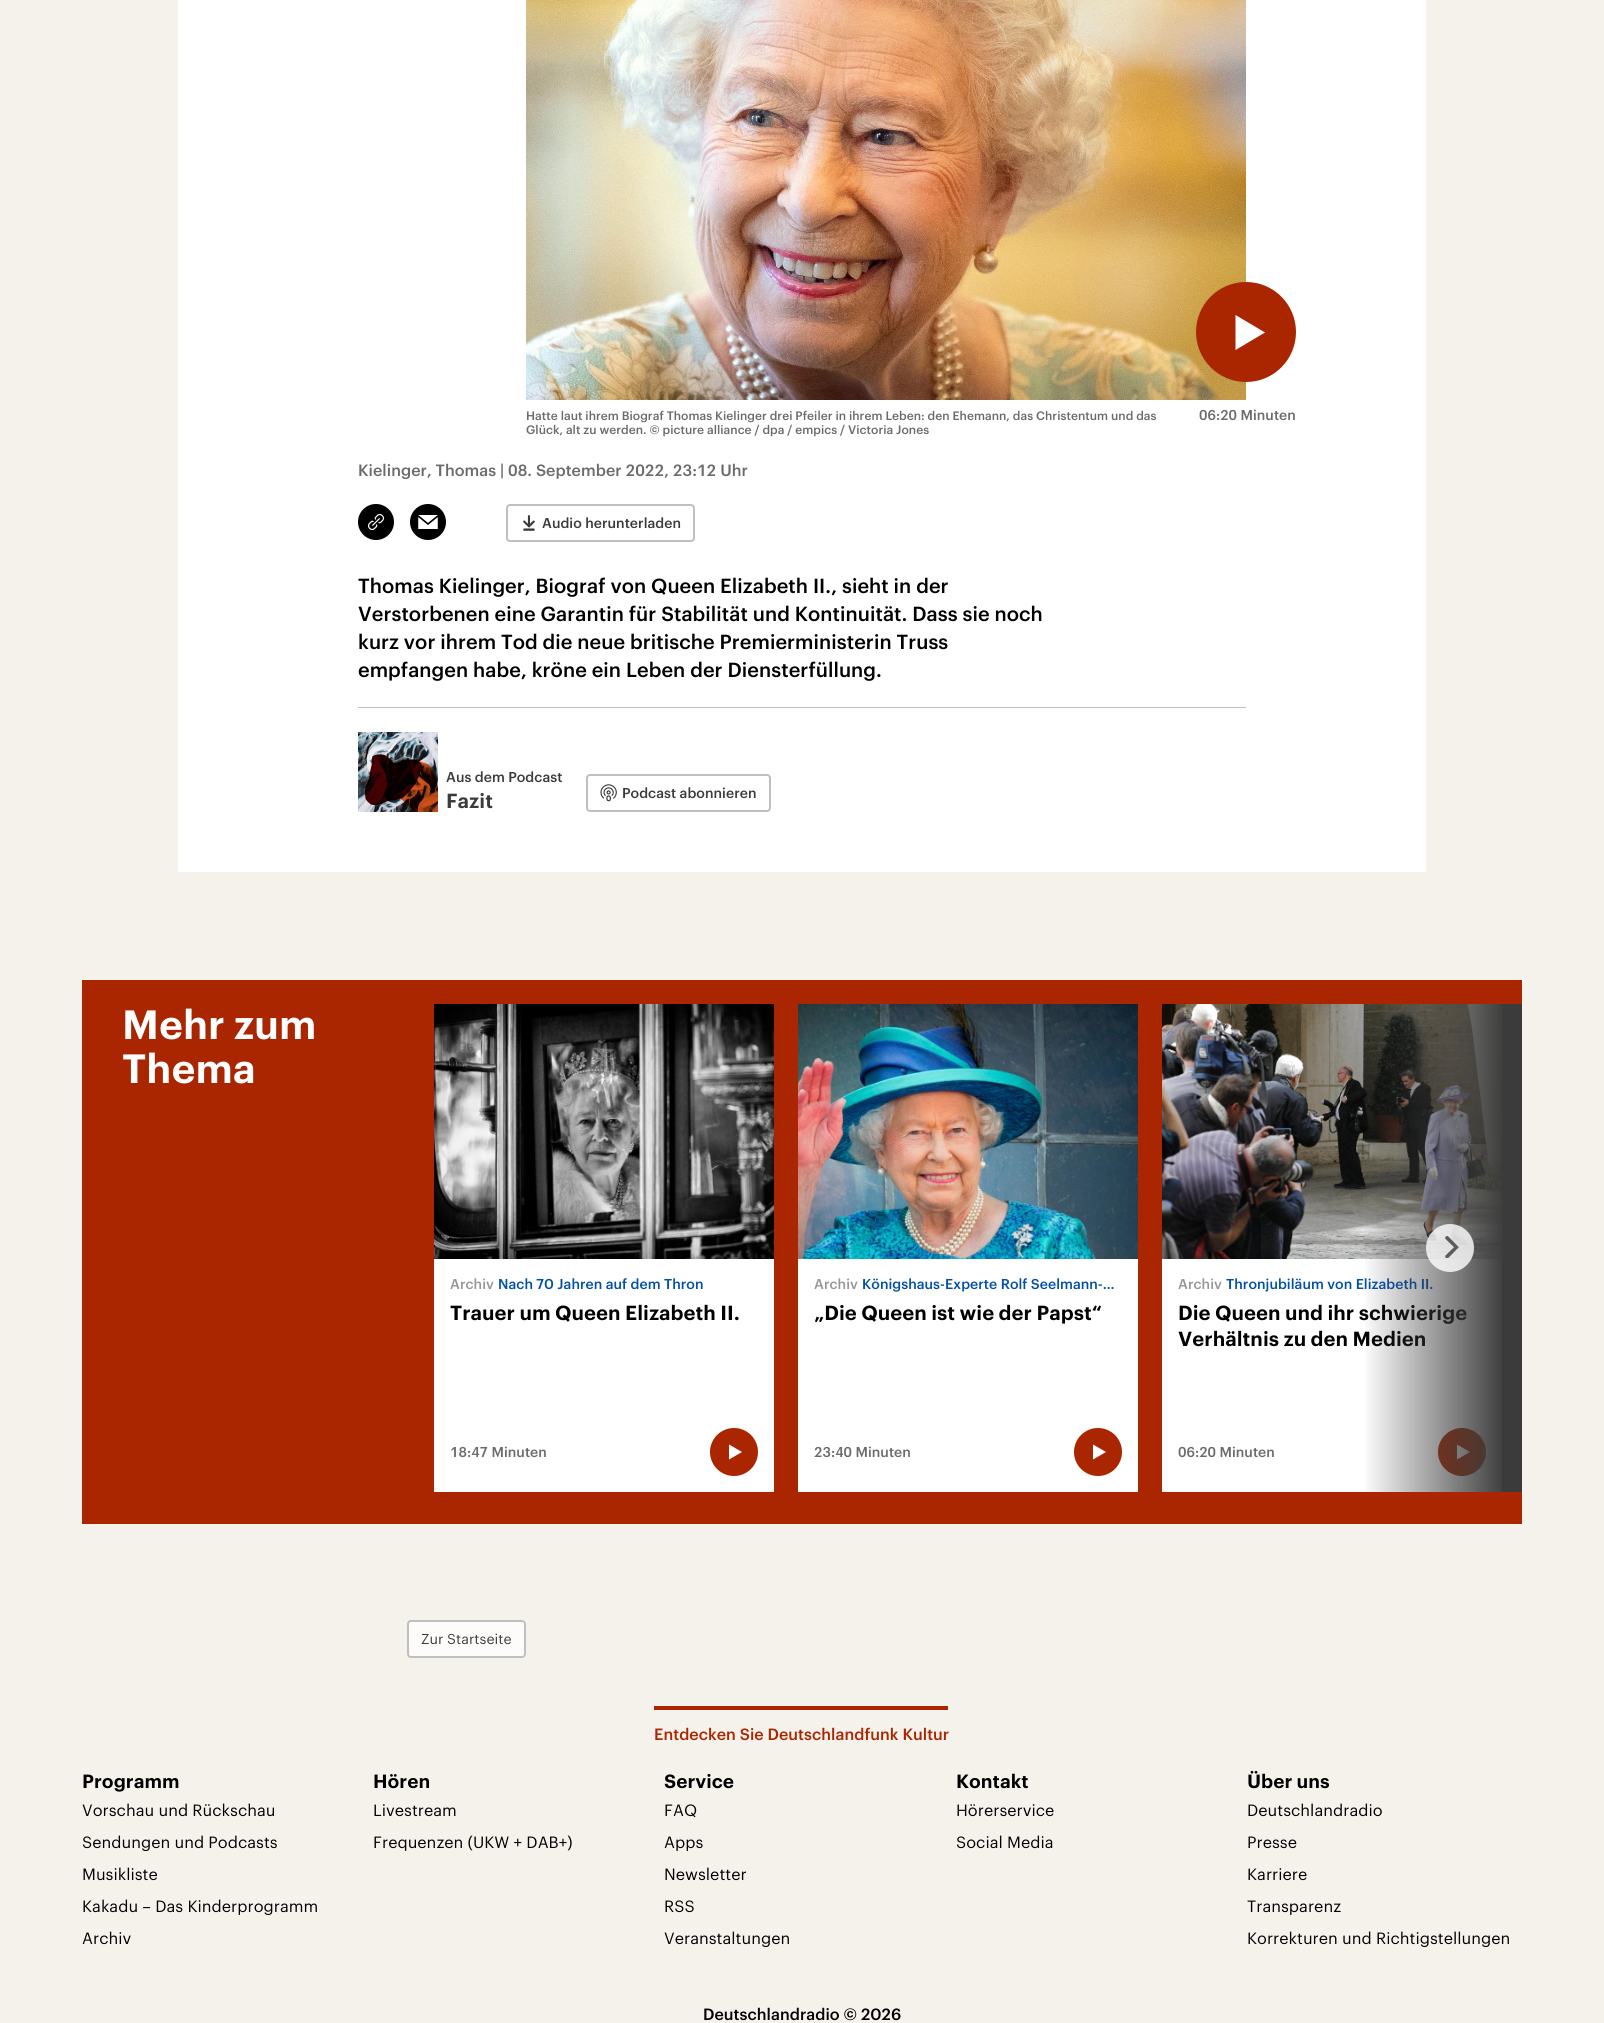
#include <cairo/cairo.h>
#include <math.h>
#include <stddef.h>

static cairo_t *cr;

static void use_color(int r, int g, int b) {
  cairo_set_source_rgb(cr, r / 255.0, g / 255.0, b / 255.0);
}

static void text(double x, double y, const char *s, const char *family, double size, int italic, int bold, int r, int g, int b) {
  cairo_select_font_face(cr, family, italic ? CAIRO_FONT_SLANT_ITALIC : CAIRO_FONT_SLANT_NORMAL,
    bold ? CAIRO_FONT_WEIGHT_BOLD : CAIRO_FONT_WEIGHT_NORMAL);
  cairo_set_font_size(cr, size);
  use_color(r, g, b);
  cairo_move_to(cr, x, y);
  cairo_show_text(cr, s);
}

static void box(double x, double y, double w, double h, int r, int g, int b) {
  use_color(r, g, b);
  cairo_rectangle(cr, x, y, w, h);
  cairo_fill(cr);
}

static void round_rect(double x, double y, double w, double h, double r) {
  cairo_new_sub_path(cr);
  cairo_arc(cr, x + w - r, y + h - r, r, 0, M_PI / 2);
  cairo_arc(cr, x + r, y + h - r, r, M_PI / 2, M_PI);
  cairo_arc(cr, x + r, y + r, r, M_PI, 1.5 * M_PI);
  cairo_arc(cr, x + w - r, y + r, r, 1.5 * M_PI, 2 * M_PI);
  cairo_close_path(cr);
}

static void picture(const char *path, double x, double y, double w, double h) {
  cairo_surface_t *image = cairo_image_surface_create_from_png(path);
  cairo_save(cr);
  cairo_set_source_surface(cr, image, x, y);
  cairo_rectangle(cr, x, y, w, h);
  cairo_fill(cr);
  cairo_restore(cr);
  cairo_surface_destroy(image);
}

static void draw(void) {
  cairo_pattern_t *gradient;
  use_color(245, 241, 235);
  cairo_paint(cr);
  box(178, 0, 1248, 872, 255, 255, 255);
  picture("img_01.png", 526, 0, 720, 400);
  use_color(169, 38, 0);
  cairo_arc(cr, 1246, 332, 50, 0, 2 * M_PI);
  cairo_fill(cr);
  use_color(255, 255, 255);
  cairo_new_path(cr);
  cairo_move_to(cr, 1235.5, 350);
  cairo_line_to(cr, 1235.5, 315);
  cairo_line_to(cr, 1265, 332.5);
  cairo_close_path(cr);
  cairo_fill(cr);
  use_color(0, 0, 0);
  cairo_arc(cr, 376, 522, 18, 0, 2 * M_PI);
  cairo_fill(cr);
  picture("img_02.png", 367, 513, 18, 18);
  cairo_arc(cr, 428, 522, 18, 0, 2 * M_PI);
  cairo_fill(cr);
  picture("img_03.png", 418, 515, 20, 14);
  round_rect(507, 505, 187, 36, 3);
  use_color(191, 191, 191);
  cairo_stroke(cr);
  picture("img_04.png", 523, 515, 12, 16);
  box(358, 707, 888, 1, 191, 191, 191);
  picture("img_05.png", 358, 732, 80, 80);
  round_rect(587, 775, 183, 36, 3);
  cairo_stroke(cr);
  picture("img_06.png", 600, 784, 17, 18);
  box(82, 980, 1440, 544, 169, 38, 0);
  box(434, 1259, 340, 233, 255, 255, 255);
  picture("img_08.png", 434, 1004, 340, 255);
  use_color(169, 38, 0);
  cairo_arc(cr, 734, 1452, 24, 0, 2 * M_PI);
  cairo_fill(cr);
  use_color(255, 255, 255);
  cairo_new_path(cr);
  cairo_move_to(cr, 729, 1459.5);
  cairo_line_to(cr, 729, 1444.5);
  cairo_line_to(cr, 742, 1452);
  cairo_close_path(cr);
  cairo_fill(cr);
  box(798, 1259, 340, 233, 255, 255, 255);
  picture("img_09.png", 798, 1004, 340, 255);
  use_color(169, 38, 0);
  cairo_arc(cr, 1098, 1452, 24, 0, 2 * M_PI);
  cairo_fill(cr);
  use_color(255, 255, 255);
  cairo_new_path(cr);
  cairo_move_to(cr, 1093, 1459.5);
  cairo_line_to(cr, 1093, 1444.5);
  cairo_line_to(cr, 1106, 1452);
  cairo_close_path(cr);
  cairo_fill(cr);
  box(1162, 1259, 340, 233, 255, 255, 255);
  picture("img_10.png", 1162, 1004, 340, 255);
  use_color(169, 38, 0);
  cairo_arc(cr, 1462, 1452, 24, 0, 2 * M_PI);
  cairo_fill(cr);
  use_color(255, 255, 255);
  cairo_new_path(cr);
  cairo_move_to(cr, 1457, 1459.5);
  cairo_line_to(cr, 1457, 1444.5);
  cairo_line_to(cr, 1470, 1452);
  cairo_close_path(cr);
  cairo_fill(cr);
  use_color(253, 252, 250);
  round_rect(408, 1621, 117, 36, 3);
  cairo_fill_preserve(cr);
  use_color(191, 191, 191);
  cairo_stroke(cr);
  box(654, 1706, 294, 4, 169, 38, 0);
  text(526, 420, "Hatte laut ihrem Biograf Thomas Kielinger drei Pfeiler in ihrem Leben: den Ehemann, das Christentum und das", "Graphik Medium", 12, 0, 0, 107, 107, 107);
  text(526, 434, "Glück, alt zu werden. © picture alliance / dpa / empics / Victoria Jones", "Graphik Medium", 12, 0, 0, 107, 107, 107);
  text(1199, 420, "06:20 Minuten", "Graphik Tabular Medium", 14, 0, 0, 107, 107, 107);
  text(358, 476, "Kielinger, Thomas |", "Graphik Medium", 16, 0, 0, 107, 107, 107);
  text(508, 476, "08. September 2022, 23:12 Uhr", "Graphik Tabular Medium", 16, 0, 0, 107, 107, 107);
  text(542, 528, "Audio herunterladen", "Graphik Medium", 14, 0, 0, 59, 59, 59);
  text(358, 593, "Thomas Kielinger, Biograf von Queen Elizabeth II., sieht in der", "Graphik Medium", 20, 0, 0, 0, 0, 0);
  text(358, 621, "Verstorbenen eine Garantin für Stabilität und Kontinuität. Dass sie noch", "Graphik Medium", 20, 0, 0, 0, 0, 0);
  text(358, 649, "kurz vor ihrem Tod die neue britische Premierministerin Truss", "Graphik Medium", 20, 0, 0, 0, 0, 0);
  text(358, 677, "empfangen habe, kröne ein Leben der Diensterfüllung.", "Graphik Medium", 20, 0, 0, 0, 0, 0);
  text(446, 782, "Aus dem Podcast", "Graphik Medium", 14, 0, 0, 59, 59, 59);
  text(446, 808, "Fazit", "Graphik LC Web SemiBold", 20, 0, 0, 59, 59, 59);
  text(622, 798, "Podcast abonnieren", "Graphik Medium", 14, 0, 0, 59, 59, 59);
  text(122, 1039, "Mehr zum", "Graphik LC Web SemiBold", 40, 0, 0, 255, 255, 255);
  text(122, 1083, "Thema", "Graphik LC Web SemiBold", 40, 0, 0, 255, 255, 255);
  text(450, 1289, "Archiv", "Graphik Medium", 14, 0, 0, 151, 151, 151);
  text(498, 1289, "Nach 70 Jahren auf dem Thron", "Graphik Medium", 14, 0, 0, 0, 80, 170);
  text(450, 1320, "Trauer um Queen Elizabeth II.", "Graphik LC Web SemiBold", 20, 0, 0, 0, 0, 0);
  text(450, 1457, "18:47 Minuten", "Graphik Tabular Medium", 14, 0, 0, 107, 107, 107);
  text(814, 1289, "Archiv", "Graphik Medium", 14, 0, 0, 151, 151, 151);
  text(862, 1289, "Königshaus-Experte Rolf Seelmann-…", "Graphik Medium", 14, 0, 0, 0, 80, 170);
  text(814, 1320, "„Die Queen ist wie der Papst“", "Graphik LC Web SemiBold", 20, 0, 0, 0, 0, 0);
  text(814, 1457, "23:40 Minuten", "Graphik Tabular Medium", 14, 0, 0, 107, 107, 107);
  text(1178, 1289, "Archiv", "Graphik Medium", 14, 0, 0, 151, 151, 151);
  text(1226, 1289, "Thronjubiläum von Elizabeth II.", "Graphik Medium", 14, 0, 0, 0, 80, 170);
  text(1178, 1320, "Die Queen und ihr schwierige", "Graphik LC Web SemiBold", 20, 0, 0, 0, 0, 0);
  text(1178, 1346, "Verhältnis zu den Medien", "Graphik LC Web SemiBold", 20, 0, 0, 0, 0, 0);
  gradient = cairo_pattern_create_linear(1522, 1248, 1362, 1248);
  cairo_pattern_add_color_stop_rgba(gradient, 0.1, 0.231, 0.231, 0.231, 1);
  cairo_pattern_add_color_stop_rgba(gradient, 1, 0.231, 0.231, 0.231, 0);
  cairo_set_source(cr, gradient);
  cairo_pattern_destroy(gradient);
  cairo_rectangle(cr, 1365, 1004, 157, 488);
  cairo_fill(cr);
  cairo_set_source_rgba(cr, 1, 1, 1, 0.8);
  cairo_arc(cr, 1450, 1248, 24, 0, 2 * M_PI);
  cairo_fill(cr);
  picture("img_07.png", 1445, 1236, 14, 22);
  text(1178, 1457, "06:20 Minuten", "Graphik Tabular Medium", 14, 0, 0, 107, 107, 107);
  text(421, 1644, "Zur Startseite", "Graphik", 14, 0, 0, 59, 59, 59);
  text(654, 1740, "Entdecken Sie Deutschlandfunk Kultur", "Graphik Medium", 16, 0, 0, 169, 38, 0);
  text(82, 1788, "Programm", "Graphik LC Web SemiBold", 18.75, 0, 0, 0, 0, 0);
  text(82, 1816, "Vorschau und Rückschau", "Graphik", 16, 0, 0, 0, 0, 0);
  text(82, 1848, "Sendungen und Podcasts", "Graphik", 16, 0, 0, 0, 0, 0);
  text(82, 1880, "Musikliste", "Graphik", 16, 0, 0, 0, 0, 0);
  text(82, 1912, "Kakadu – Das Kinderprogramm", "Graphik", 16, 0, 0, 0, 0, 0);
  text(82, 1944, "Archiv", "Graphik", 16, 0, 0, 0, 0, 0);
  text(373, 1788, "Hören", "Graphik LC Web SemiBold", 18.75, 0, 0, 0, 0, 0);
  text(373, 1816, "Livestream", "Graphik", 16, 0, 0, 0, 0, 0);
  text(373, 1848, "Frequenzen (UKW + DAB+)", "Graphik", 16, 0, 0, 0, 0, 0);
  text(664, 1788, "Service", "Graphik LC Web SemiBold", 18.75, 0, 0, 0, 0, 0);
  text(664, 1816, "FAQ", "Graphik", 16, 0, 0, 0, 0, 0);
  text(664, 1848, "Apps", "Graphik", 16, 0, 0, 0, 0, 0);
  text(664, 1880, "Newsletter", "Graphik", 16, 0, 0, 0, 0, 0);
  text(664, 1912, "RSS", "Graphik", 16, 0, 0, 0, 0, 0);
  text(664, 1944, "Veranstaltungen", "Graphik", 16, 0, 0, 0, 0, 0);
  text(956, 1788, "Kontakt", "Graphik LC Web SemiBold", 18.75, 0, 0, 0, 0, 0);
  text(956, 1816, "Hörerservice", "Graphik", 16, 0, 0, 0, 0, 0);
  text(956, 1848, "Social Media", "Graphik", 16, 0, 0, 0, 0, 0);
  text(1247, 1788, "Über uns", "Graphik LC Web SemiBold", 18.75, 0, 0, 0, 0, 0);
  text(1247, 1816, "Deutschlandradio", "Graphik", 16, 0, 0, 0, 0, 0);
  text(1247, 1848, "Presse", "Graphik", 16, 0, 0, 0, 0, 0);
  text(1247, 1880, "Karriere", "Graphik", 16, 0, 0, 0, 0, 0);
  text(1247, 1912, "Transparenz", "Graphik", 16, 0, 0, 0, 0, 0);
  text(1247, 1944, "Korrekturen und Richtigstellungen", "Graphik", 16, 0, 0, 0, 0, 0);
  text(703, 2020, "Deutschlandradio © 2026", "Graphik Medium", 16, 0, 0, 0, 0, 0);
}

int main(void) {
  cairo_surface_t *surface = cairo_image_surface_create(CAIRO_FORMAT_RGB24, 1604, 2023);
  cr = cairo_create(surface);
  cairo_font_options_t *options = cairo_font_options_create();
  cairo_font_options_set_hint_metrics(options, CAIRO_HINT_METRICS_OFF);
  cairo_font_options_set_hint_style(options, CAIRO_HINT_STYLE_NONE);
  cairo_set_font_options(cr, options);
  cairo_set_miter_limit(cr, 4);
  draw();
  cairo_surface_write_to_png(surface, "out.png");
  cairo_font_options_destroy(options);
  cairo_destroy(cr);
  cairo_surface_destroy(surface);
  return 0;
}
